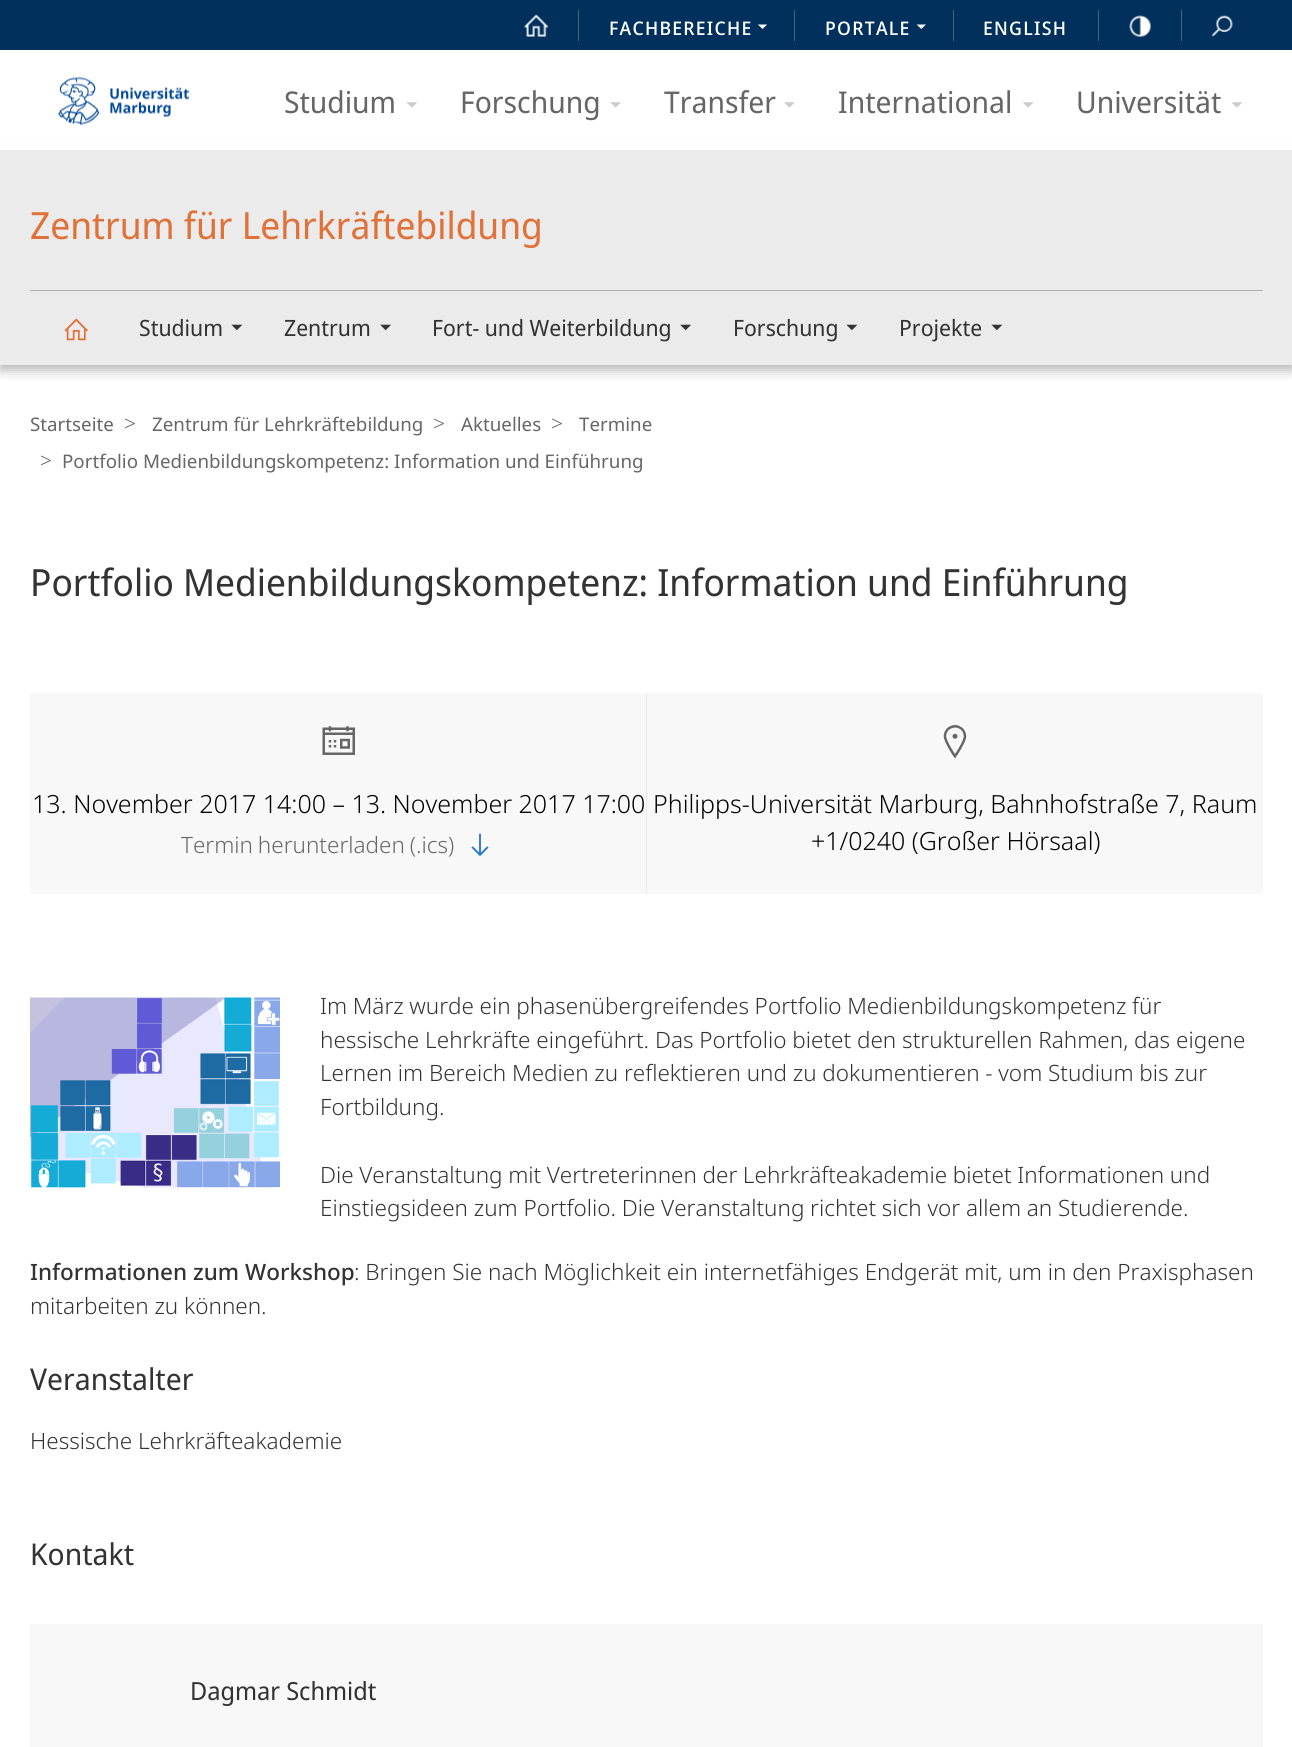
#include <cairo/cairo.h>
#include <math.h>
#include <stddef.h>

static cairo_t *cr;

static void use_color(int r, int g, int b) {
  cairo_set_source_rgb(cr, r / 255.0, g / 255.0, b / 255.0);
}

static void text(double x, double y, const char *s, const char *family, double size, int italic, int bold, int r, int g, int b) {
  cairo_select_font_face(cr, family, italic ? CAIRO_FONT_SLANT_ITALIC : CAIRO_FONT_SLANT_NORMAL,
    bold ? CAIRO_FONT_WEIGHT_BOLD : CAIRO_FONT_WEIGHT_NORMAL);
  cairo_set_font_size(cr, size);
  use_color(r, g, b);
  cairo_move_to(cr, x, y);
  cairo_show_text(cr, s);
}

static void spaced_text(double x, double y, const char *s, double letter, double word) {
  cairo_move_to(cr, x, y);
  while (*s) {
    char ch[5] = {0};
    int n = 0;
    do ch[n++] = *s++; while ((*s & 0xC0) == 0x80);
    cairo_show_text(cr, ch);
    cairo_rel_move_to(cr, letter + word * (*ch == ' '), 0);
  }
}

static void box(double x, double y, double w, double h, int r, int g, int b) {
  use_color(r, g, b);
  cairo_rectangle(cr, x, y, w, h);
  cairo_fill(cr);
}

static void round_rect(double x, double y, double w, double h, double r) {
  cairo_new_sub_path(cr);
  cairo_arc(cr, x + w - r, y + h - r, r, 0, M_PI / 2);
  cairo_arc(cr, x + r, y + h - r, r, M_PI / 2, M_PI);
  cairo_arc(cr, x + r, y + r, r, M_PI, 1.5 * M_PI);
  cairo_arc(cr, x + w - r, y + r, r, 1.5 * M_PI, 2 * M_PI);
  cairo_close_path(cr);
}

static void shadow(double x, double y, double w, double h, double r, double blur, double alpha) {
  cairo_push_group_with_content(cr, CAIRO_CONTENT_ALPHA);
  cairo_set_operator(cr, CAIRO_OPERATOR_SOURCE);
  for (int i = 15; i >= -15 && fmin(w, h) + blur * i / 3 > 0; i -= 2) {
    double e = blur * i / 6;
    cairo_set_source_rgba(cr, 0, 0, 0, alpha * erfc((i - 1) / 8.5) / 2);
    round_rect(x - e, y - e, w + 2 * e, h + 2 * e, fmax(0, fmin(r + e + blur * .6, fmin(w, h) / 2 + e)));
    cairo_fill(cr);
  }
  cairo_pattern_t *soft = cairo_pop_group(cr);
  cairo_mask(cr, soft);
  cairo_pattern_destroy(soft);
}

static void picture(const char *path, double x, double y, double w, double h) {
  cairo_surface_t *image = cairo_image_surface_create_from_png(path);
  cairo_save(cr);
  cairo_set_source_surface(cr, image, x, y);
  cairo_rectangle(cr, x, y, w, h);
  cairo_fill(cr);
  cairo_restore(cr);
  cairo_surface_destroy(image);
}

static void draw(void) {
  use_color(255, 255, 255);
  cairo_paint(cr);
  box(0, 0, 1292, 50, 0, 48, 91);
  picture("img_01.png", 524, 14, 25, 23);
  box(578, 10, 1, 31, 64, 100, 132);
  picture("img_02.png", 758, 24, 9, 5);
  box(794, 10, 1, 31, 64, 100, 132);
  picture("img_03.png", 916, 24, 10, 5);
  box(953, 10, 1, 31, 64, 100, 132);
  box(1098, 10, 1, 31, 64, 100, 132);
  picture("img_04.png", 1129, 15, 22, 22);
  box(1181, 10, 1, 31, 64, 100, 132);
  picture("img_05.png", 1211, 15, 22, 22);
  use_color(0, 0, 0);
  shadow(0, 155, 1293, 215, 0, 6, 0.3);
  box(0, 144, 1292, 6, 255, 255, 255);
  picture("img_06.png", 58, 77, 131, 48);
  picture("img_07.png", 406, 102, 11, 6);
  picture("img_08.png", 610, 102, 11, 6);
  picture("img_09.png", 784, 102, 11, 6);
  picture("img_10.png", 1023, 102, 11, 6);
  picture("img_07.png", 1231, 102, 11, 6);
  box(0, 150, 1292, 215, 235, 235, 235);
  box(30, 290, 1233, 1, 176, 176, 176);
  picture("img_11.png", 64, 318, 24, 23);
  picture("img_12.png", 231, 324, 12, 7);
  picture("img_13.png", 380, 324, 11, 7);
  picture("img_13.png", 680, 324, 11, 7);
  picture("img_12.png", 846, 324, 12, 7);
  picture("img_12.png", 991, 324, 12, 7);
  box(30, 693, 616, 201, 248, 248, 248);
  picture("img_14.png", 322, 726, 33, 29);
  picture("img_15.png", 471, 833, 18, 24);
  box(647, 693, 616, 201, 248, 248, 248);
  box(646, 693, 1, 201, 235, 235, 235);
  picture("img_16.png", 943, 725, 24, 34);
  picture("img_17.png", 30, 997, 250, 191);
  box(30, 1624, 1233, 123, 248, 248, 248);
  cairo_select_font_face(cr, "Noto Sans Display Medium", CAIRO_FONT_SLANT_NORMAL, CAIRO_FONT_WEIGHT_NORMAL);
  cairo_set_font_size(cr, 18.75);
  use_color(255, 255, 255);
  spaced_text(609, 35, "FACHBEREICHE", 1.25, 0);
  spaced_text(825, 35, "PORTALE", 1.25, 0);
  spaced_text(983, 35, "ENGLISH", 1.25, 0);
  text(284, 113, "Studium", "Noto Sans Display", 30, 0, 0, 102, 102, 102);
  text(460, 113, "Forschung", "Noto Sans Display", 30, 0, 0, 102, 102, 102);
  text(664, 113, "Transfer", "Noto Sans Display", 30, 0, 0, 102, 102, 102);
  text(838, 113, "International", "Noto Sans Display", 30, 0, 0, 102, 102, 102);
  text(1076, 113, "Universität", "Noto Sans Display", 30, 0, 0, 102, 102, 102);
  text(30, 239, "Zentrum für Lehrkräftebildung", "Noto Sans Display", 37.5, 0, 0, 224, 114, 57);
  text(139, 336, "Studium", "Noto Sans Display", 22.5, 0, 0, 51, 51, 51);
  text(284, 336, "Zentrum", "Noto Sans Display", 22.5, 0, 0, 51, 51, 51);
  text(432, 336, "Fort- und Weiterbildung", "Noto Sans Display", 22.5, 0, 0, 51, 51, 51);
  text(733, 336, "Forschung", "Noto Sans Display", 22.5, 0, 0, 51, 51, 51);
  text(899, 336, "Projekte", "Noto Sans Display", 22.5, 0, 0, 51, 51, 51);
  text(30, 431, "Startseite", "Noto Sans", 18.75, 0, 0, 102, 102, 102);
  text(124, 431, ">", "Noto Sans Light", 21, 0, 0, 102, 102, 102);
  text(152, 431, "Zentrum für Lehrkräftebildung", "Noto Sans", 18.75, 0, 0, 102, 102, 102);
  text(433, 431, ">", "Noto Sans Light", 21, 0, 0, 102, 102, 102);
  text(461, 431, "Aktuelles", "Noto Sans", 18.75, 0, 0, 102, 102, 102);
  text(551, 431, ">", "Noto Sans Light", 21, 0, 0, 102, 102, 102);
  text(579, 431, "Termine", "Noto Sans", 18.75, 0, 0, 102, 102, 102);
  text(40, 468, ">", "Noto Sans Light", 21, 0, 0, 102, 102, 102);
  text(62, 468, "Portfolio Medienbildungskompetenz: Information und Einführung", "Noto Sans", 18.75, 0, 0, 102, 102, 102);
  text(30, 596, "Portfolio Medienbildungskompetenz: Information und Einführung", "Noto Sans Display", 37.5, 0, 0, 51, 51, 51);
  text(32, 813, "13. November 2017 14:00 – 13. November 2017 17:00", "Noto Sans Light", 25, 0, 0, 0, 0, 0);
  cairo_set_font_size(cr, 22.5);
  use_color(102, 102, 102);
  spaced_text(181, 853, "Termin herunterladen (.ics)", 0, -1);
  text(653, 813, "Philipps-Universität Marburg, Bahnhofstraße 7, Raum", "Noto Sans Light", 25, 0, 0, 0, 0, 0);
  text(811, 850, "+1/0240 (Großer Hörsaal)", "Noto Sans Light", 25, 0, 0, 0, 0, 0);
  cairo_set_font_size(cr, 22.5);
  use_color(51, 51, 51);
  spaced_text(320, 1014, "Im März wurde ein phasenübergreifendes Portfolio Medienbildungskompetenz für", 0, -0.25);
  text(320, 1048, "hessische Lehrkräfte eingeführt. Das Portfolio bietet den strukturellen Rahmen, das eigene", "Noto Sans Light", 22.5, 0, 0, 51, 51, 51);
  spaced_text(320, 1081, "Lernen im Bereich Medien zu reflektieren und zu dokumentieren - vom Studium bis zur", 0, -0.1);
  text(320, 1115, "Fortbildung.", "Noto Sans Light", 22.5, 0, 0, 51, 51, 51);
  spaced_text(320, 1183, "Die Veranstaltung mit Vertreterinnen der Lehrkräfteakademie bietet Informationen und", 0, -0.25);
  spaced_text(320, 1216, "Einstiegsideen zum Portfolio. Die Veranstaltung richtet sich vor allem an Studierende.", 0, -0.1);
  text(30, 1280, "Informationen zum Workshop", "Noto Sans Medium", 22.5, 0, 0, 51, 51, 51);
  text(354, 1280, ": Bringen Sie nach Möglichkeit ein internetfähiges Endgerät mit, um in den Praxisphasen", "Noto Sans Light", 22.5, 0, 0, 51, 51, 51);
  text(30, 1314, "mitarbeiten zu können.", "Noto Sans Light", 22.5, 0, 0, 51, 51, 51);
  text(30, 1390, "Veranstalter", "Noto Sans Display", 30, 0, 0, 51, 51, 51);
  text(30, 1449, "Hessische Lehrkräfteakademie", "Noto Sans Light", 22.5, 0, 0, 51, 51, 51);
  text(30, 1565, "Kontakt", "Noto Sans Display", 30, 0, 0, 51, 51, 51);
  text(190, 1700, "Dagmar Schmidt", "Noto Sans Display", 25, 0, 0, 51, 51, 51);
}

int main(void) {
  cairo_surface_t *surface = cairo_image_surface_create(CAIRO_FORMAT_RGB24, 1292, 1747);
  cr = cairo_create(surface);
  cairo_font_options_t *options = cairo_font_options_create();
  cairo_font_options_set_hint_metrics(options, CAIRO_HINT_METRICS_OFF);
  cairo_font_options_set_hint_style(options, CAIRO_HINT_STYLE_NONE);
  cairo_set_font_options(cr, options);
  cairo_set_miter_limit(cr, 4);
  draw();
  cairo_surface_write_to_png(surface, "out.png");
  cairo_font_options_destroy(options);
  cairo_destroy(cr);
  cairo_surface_destroy(surface);
  return 0;
}
